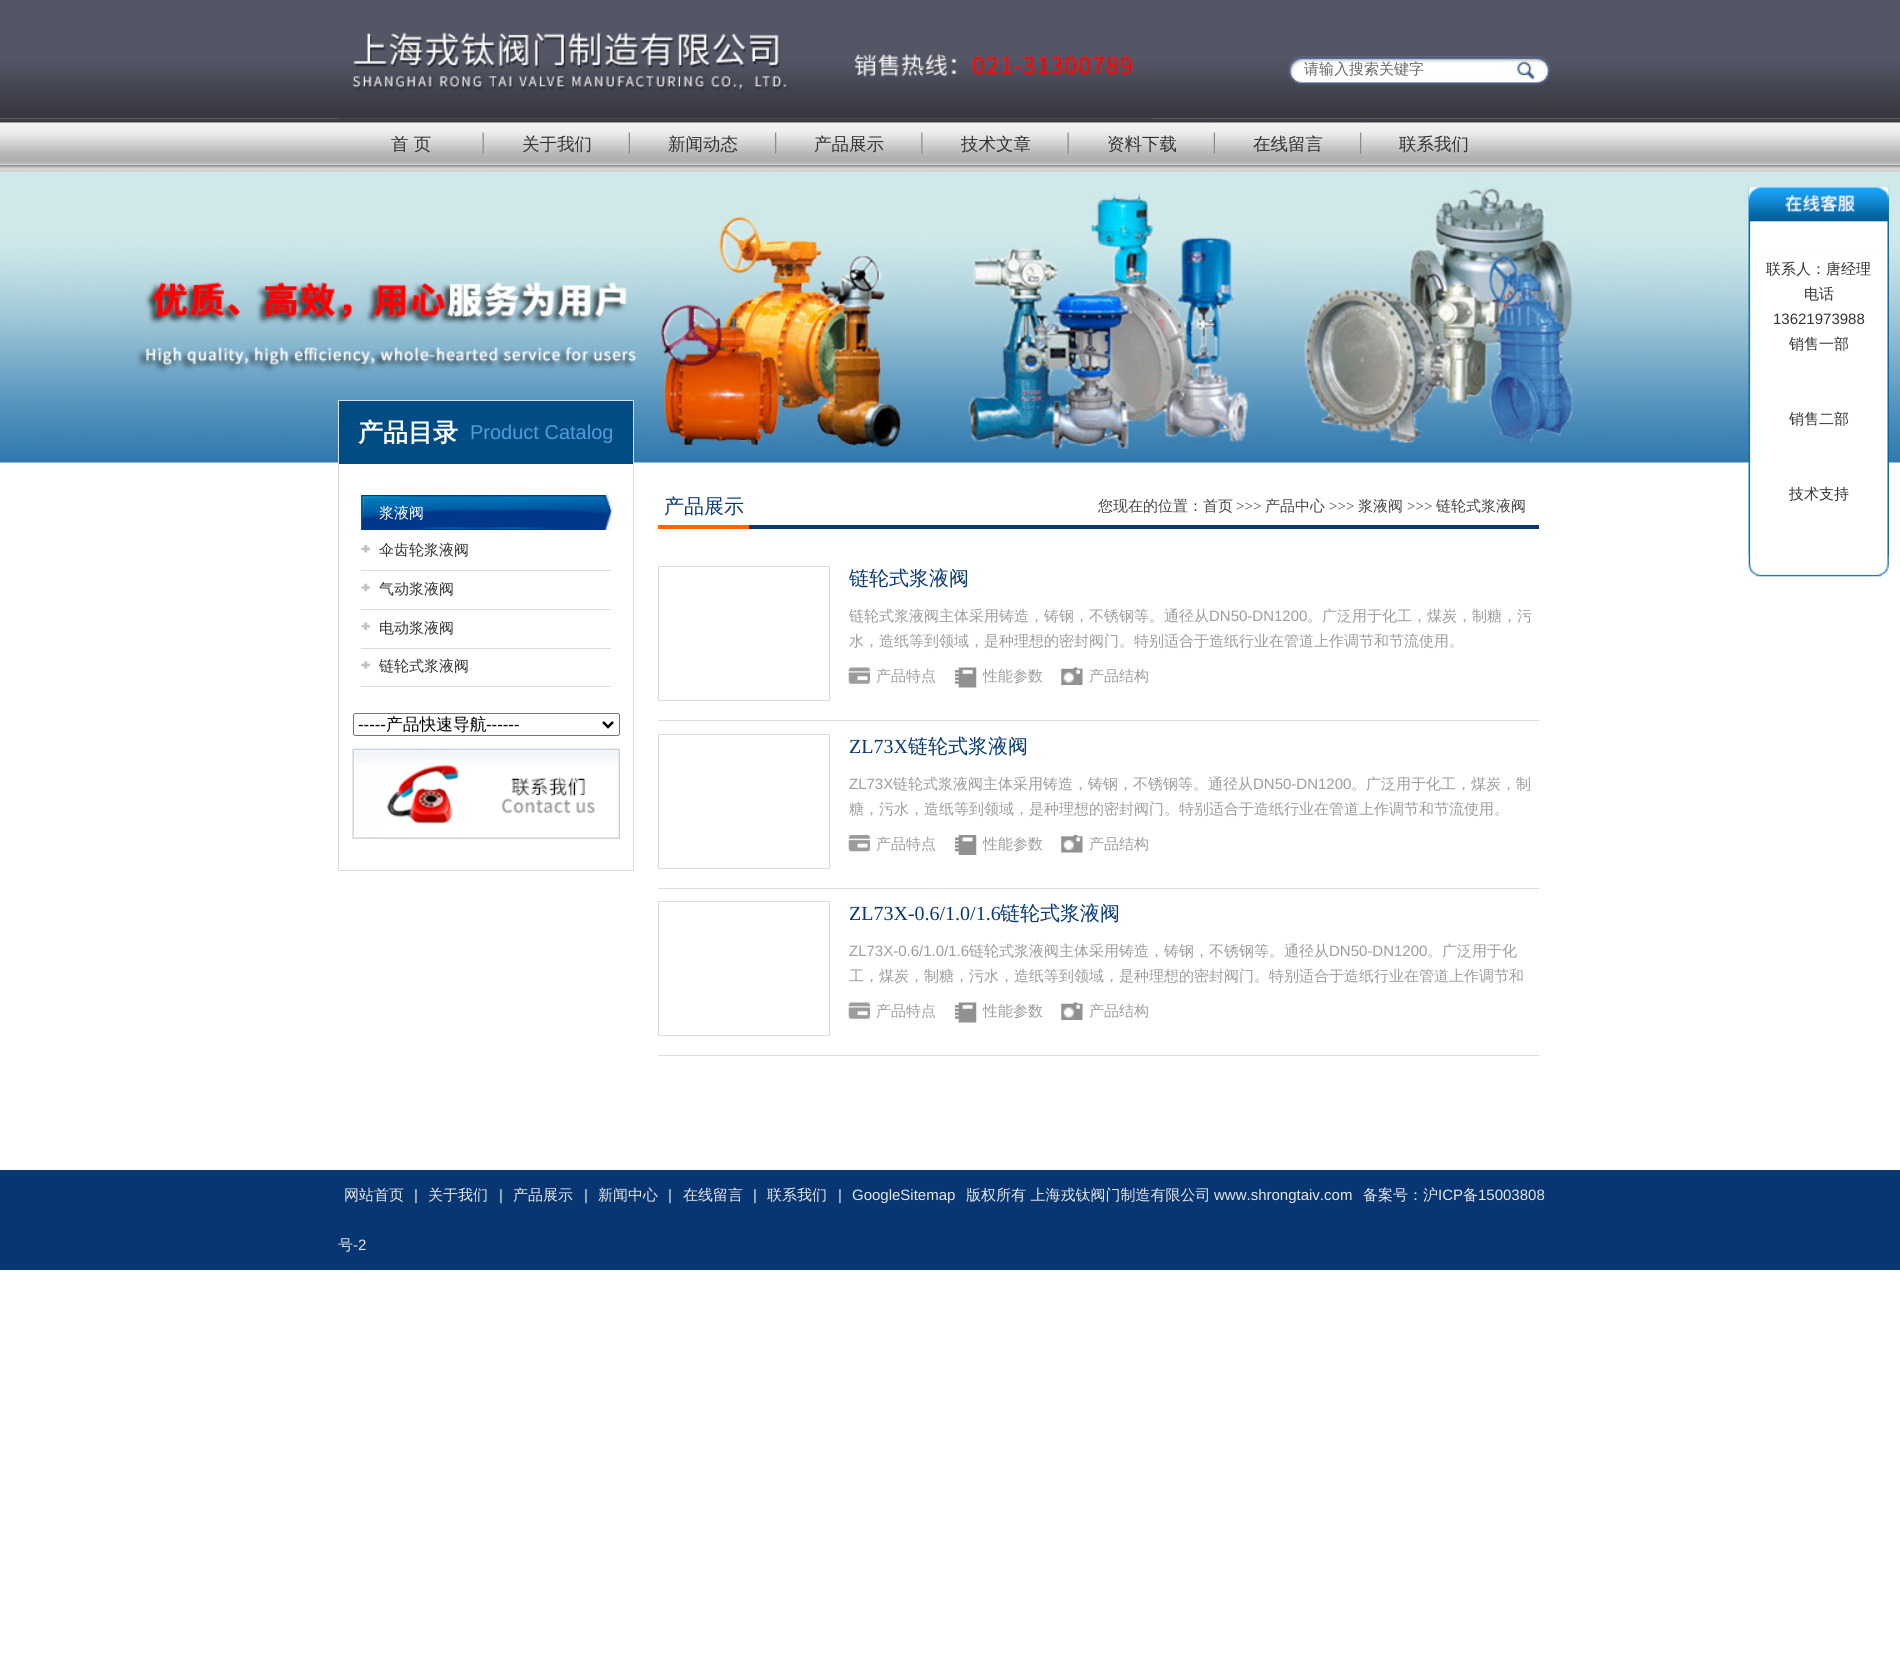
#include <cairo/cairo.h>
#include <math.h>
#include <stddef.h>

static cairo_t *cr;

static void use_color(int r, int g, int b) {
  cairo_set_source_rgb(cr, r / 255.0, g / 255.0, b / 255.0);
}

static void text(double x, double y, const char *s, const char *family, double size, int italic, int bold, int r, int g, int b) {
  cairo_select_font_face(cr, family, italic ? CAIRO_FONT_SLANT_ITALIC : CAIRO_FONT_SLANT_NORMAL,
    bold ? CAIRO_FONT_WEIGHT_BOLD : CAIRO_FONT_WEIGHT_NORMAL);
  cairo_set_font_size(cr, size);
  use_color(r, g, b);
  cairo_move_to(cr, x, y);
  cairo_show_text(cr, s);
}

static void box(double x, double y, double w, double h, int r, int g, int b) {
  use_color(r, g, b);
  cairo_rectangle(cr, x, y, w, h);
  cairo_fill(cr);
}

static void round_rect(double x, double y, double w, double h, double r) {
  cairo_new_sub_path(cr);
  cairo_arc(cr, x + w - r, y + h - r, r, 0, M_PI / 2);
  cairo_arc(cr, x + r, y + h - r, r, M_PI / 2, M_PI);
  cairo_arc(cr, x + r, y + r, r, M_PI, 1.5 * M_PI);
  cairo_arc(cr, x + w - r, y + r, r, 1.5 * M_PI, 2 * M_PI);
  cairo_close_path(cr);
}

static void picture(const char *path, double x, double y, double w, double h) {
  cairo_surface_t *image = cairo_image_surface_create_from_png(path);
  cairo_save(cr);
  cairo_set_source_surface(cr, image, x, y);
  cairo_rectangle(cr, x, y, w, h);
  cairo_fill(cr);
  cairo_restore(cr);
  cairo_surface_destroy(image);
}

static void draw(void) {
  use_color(255, 255, 255);
  cairo_paint(cr);
  picture("img_04.png", 0, 118, 1900, 55);
  picture("img_01.png", 0, 0, 1900, 119);
  picture("img_02.png", 337, 32, 815, 87);
  picture("img_03.png", 1285, 56, 265, 29);
  picture("img_12.png", 0, 172, 1900, 291);
  picture("img_05.png", 482, 132, 2, 41);
  picture("img_06.png", 628, 132, 2, 41);
  picture("img_07.png", 775, 132, 2, 41);
  picture("img_08.png", 921, 132, 2, 41);
  picture("img_09.png", 1067, 132, 2, 41);
  picture("img_10.png", 1213, 118, 2, 55);
  picture("img_11.png", 1360, 118, 2, 55);
  picture("img_13.png", 1748, 187, 141, 62);
  picture("img_15.png", 1748, 248, 141, 309);
  picture("img_14.png", 1748, 187, 141, 62);
  picture("img_16.png", 1748, 556, 141, 21);
  cairo_rectangle(cr, 338.5, 400.5, 295, 470);
  use_color(221, 221, 221);
  cairo_set_line_width(cr, 1);
  cairo_stroke(cr);
  box(339, 401, 294, 63, 1, 76, 133);
  picture("img_17.png", 361, 495, 251, 35);
  picture("img_18.png", 361, 495, 251, 35);
  box(361, 570, 250, 1, 221, 221, 221);
  picture("img_19.png", 361, 545, 9, 8);
  box(361, 609, 250, 1, 221, 221, 221);
  picture("img_20.png", 361, 583, 9, 9);
  box(361, 648, 250, 1, 221, 221, 221);
  picture("img_21.png", 361, 622, 9, 8);
  box(361, 686, 250, 1, 221, 221, 221);
  picture("img_22.png", 361, 661, 9, 8);
  round_rect(353.5, 713.5, 266, 22, 2);
  use_color(118, 118, 118);
  cairo_stroke(cr);
  cairo_new_path(cr);
  cairo_move_to(cr, 603, 722);
  cairo_line_to(cr, 608, 727);
  cairo_line_to(cr, 613, 722);
  use_color(0, 0, 0);
  cairo_set_line_width(cr, 2.5);
  cairo_stroke(cr);
  picture("img_23.png", 352, 748, 268, 91);
  box(749, 525, 790, 4, 7, 57, 117);
  box(658, 525, 91, 4, 255, 102, 0);
  box(658, 720, 881, 1, 222, 222, 222);
  cairo_rectangle(cr, 658.5, 566.5, 171, 134);
  use_color(221, 221, 221);
  cairo_set_line_width(cr, 1);
  cairo_stroke(cr);
  picture("img_24.png", 848, 667, 22, 17);
  picture("img_25.png", 955, 667, 22, 21);
  picture("img_26.png", 1061, 667, 22, 18);
  box(658, 888, 881, 1, 222, 222, 222);
  cairo_rectangle(cr, 658.5, 734.5, 171, 134);
  use_color(221, 221, 221);
  cairo_stroke(cr);
  picture("img_27.png", 848, 835, 22, 17);
  picture("img_28.png", 955, 835, 22, 20);
  picture("img_29.png", 1061, 835, 22, 18);
  box(658, 1055, 881, 1, 222, 222, 222);
  cairo_rectangle(cr, 658.5, 901.5, 171, 134);
  use_color(221, 221, 221);
  cairo_stroke(cr);
  picture("img_24.png", 848, 1002, 22, 17);
  picture("img_25.png", 955, 1002, 22, 21);
  picture("img_26.png", 1061, 1002, 22, 18);
  box(0, 1170, 1900, 100, 7, 54, 114);
  text(1304, 74, "请输入搜索关键字", "WenQuanYi Zen Hei Medium", 15, 0, 0, 102, 102, 102);
  text(391, 150, "首 页", "WenQuanYi Zen Hei Medium", 17.5, 0, 0, 51, 51, 51);
  text(522, 150, "关于我们", "WenQuanYi Zen Hei Medium", 17.5, 0, 0, 51, 51, 51);
  text(668, 150, "新闻动态", "WenQuanYi Zen Hei Medium", 17.5, 0, 0, 51, 51, 51);
  text(814, 150, "产品展示", "WenQuanYi Zen Hei Medium", 17.5, 0, 0, 51, 51, 51);
  text(961, 150, "技术文章", "WenQuanYi Zen Hei Medium", 17.5, 0, 0, 51, 51, 51);
  text(1107, 150, "资料下载", "WenQuanYi Zen Hei Medium", 17.5, 0, 0, 51, 51, 51);
  text(1253, 150, "在线留言", "WenQuanYi Zen Hei Medium", 17.5, 0, 0, 51, 51, 51);
  text(1399, 150, "联系我们", "WenQuanYi Zen Hei Medium", 17.5, 0, 0, 51, 51, 51);
  text(1766, 274, "联系人：唐经理", "WenQuanYi Zen Hei Medium", 15, 0, 0, 51, 51, 51);
  text(1804, 299, "电话", "WenQuanYi Zen Hei Medium", 15, 0, 0, 51, 51, 51);
  text(1773, 324, "13621973988", "Liberation Sans", 15, 0, 0, 51, 51, 51);
  text(1789, 349, "销售一部", "WenQuanYi Zen Hei Medium", 15, 0, 0, 51, 51, 51);
  text(1789, 424, "销售二部", "WenQuanYi Zen Hei Medium", 15, 0, 0, 51, 51, 51);
  text(1789, 499, "技术支持", "WenQuanYi Zen Hei Medium", 15, 0, 0, 51, 51, 51);
  text(358, 441, "产品目录", "WenQuanYi Zen Hei", 25, 0, 1, 255, 255, 255);
  text(470, 439, "Product Catalog", "Liberation Sans", 20, 0, 0, 80, 158, 217);
  text(379, 518, "浆液阀", "WenQuanYi Zen Hei Medium", 15, 0, 0, 255, 255, 255);
  text(379, 555, "伞齿轮浆液阀", "WenQuanYi Zen Hei Medium", 15, 0, 0, 51, 51, 51);
  text(379, 594, "气动浆液阀", "WenQuanYi Zen Hei Medium", 15, 0, 0, 51, 51, 51);
  text(379, 633, "电动浆液阀", "WenQuanYi Zen Hei Medium", 15, 0, 0, 51, 51, 51);
  text(379, 671, "链轮式浆液阀", "WenQuanYi Zen Hei Medium", 15, 0, 0, 51, 51, 51);
  text(358, 730, "-----", "Liberation Sans", 16.75, 0, 0, 0, 0, 0);
  text(386, 730, "产品快速导航", "WenQuanYi Zen Hei Medium", 16.75, 0, 0, 0, 0, 0);
  text(486, 730, "------", "Liberation Sans", 16.75, 0, 0, 0, 0, 0);
  text(664, 513, "产品展示", "WenQuanYi Zen Hei Medium", 20, 0, 0, 7, 57, 117);
  text(1098, 511, "您现在的位置：首页", "WenQuanYi Zen Hei Medium", 15, 0, 0, 68, 68, 68);
  text(1236, 511, ">>>", "Liberation Serif", 15, 0, 0, 68, 68, 68);
  text(1265, 511, "产品中心", "WenQuanYi Zen Hei Medium", 15, 0, 0, 68, 68, 68);
  text(1329, 511, ">>>", "Liberation Serif", 15, 0, 0, 68, 68, 68);
  text(1358, 511, "浆液阀", "WenQuanYi Zen Hei Medium", 15, 0, 0, 68, 68, 68);
  text(1407, 511, ">>>", "Liberation Serif", 15, 0, 0, 68, 68, 68);
  text(1436, 511, "链轮式浆液阀", "WenQuanYi Zen Hei Medium", 15, 0, 0, 68, 68, 68);
  text(849, 585, "链轮式浆液阀", "WenQuanYi Zen Hei Medium", 20, 0, 0, 7, 57, 117);
  text(849, 621, "链轮式浆液阀主体采用铸造，铸钢，不锈钢等。通径从", "WenQuanYi Zen Hei Medium", 15, 0, 0, 156, 156, 156);
  text(1209, 621, "DN50-DN1200", "Liberation Sans", 15, 0, 0, 156, 156, 156);
  text(1307, 621, "。广泛用于化工，煤炭，制糖，污", "WenQuanYi Zen Hei Medium", 15, 0, 0, 156, 156, 156);
  text(849, 646, "水，造纸等到领域，是种理想的密封阀门。特别适合于造纸行业在管道上作调节和节流使用。", "WenQuanYi Zen Hei Medium", 15, 0, 0, 156, 156, 156);
  text(876, 681, "产品特点", "WenQuanYi Zen Hei Medium", 15, 0, 0, 156, 156, 156);
  text(983, 681, "性能参数", "WenQuanYi Zen Hei Medium", 15, 0, 0, 156, 156, 156);
  text(1089, 681, "产品结构", "WenQuanYi Zen Hei Medium", 15, 0, 0, 156, 156, 156);
  text(849, 753, "ZL73X", "Liberation Serif", 20, 0, 0, 7, 57, 117);
  text(908, 753, "链轮式浆液阀", "WenQuanYi Zen Hei Medium", 20, 0, 0, 7, 57, 117);
  text(849, 789, "ZL73X", "Liberation Sans", 15, 0, 0, 156, 156, 156);
  text(893, 789, "链轮式浆液阀主体采用铸造，铸钢，不锈钢等。通径从", "WenQuanYi Zen Hei Medium", 15, 0, 0, 156, 156, 156);
  text(1253, 789, "DN50-DN1200", "Liberation Sans", 15, 0, 0, 156, 156, 156);
  text(1351, 789, "。广泛用于化工，煤炭，制", "WenQuanYi Zen Hei Medium", 15, 0, 0, 156, 156, 156);
  text(849, 814, "糖，污水，造纸等到领域，是种理想的密封阀门。特别适合于造纸行业在管道上作调节和节流使用。", "WenQuanYi Zen Hei Medium", 15, 0, 0, 156, 156, 156);
  text(876, 849, "产品特点", "WenQuanYi Zen Hei Medium", 15, 0, 0, 156, 156, 156);
  text(983, 849, "性能参数", "WenQuanYi Zen Hei Medium", 15, 0, 0, 156, 156, 156);
  text(1089, 849, "产品结构", "WenQuanYi Zen Hei Medium", 15, 0, 0, 156, 156, 156);
  text(849, 920, "ZL73X-0.6/1.0/1.6", "Liberation Serif", 20, 0, 0, 7, 57, 117);
  text(1000, 920, "链轮式浆液阀", "WenQuanYi Zen Hei Medium", 20, 0, 0, 7, 57, 117);
  text(849, 956, "ZL73X-0.6/1.0/1.6", "Liberation Sans", 15, 0, 0, 156, 156, 156);
  text(969, 956, "链轮式浆液阀主体采用铸造，铸钢，不锈钢等。通径从", "WenQuanYi Zen Hei Medium", 15, 0, 0, 156, 156, 156);
  text(1329, 956, "DN50-DN1200", "Liberation Sans", 15, 0, 0, 156, 156, 156);
  text(1427, 956, "。广泛用于化", "WenQuanYi Zen Hei Medium", 15, 0, 0, 156, 156, 156);
  text(849, 981, "工，煤炭，制糖，污水，造纸等到领域，是种理想的密封阀门。特别适合于造纸行业在管道上作调节和", "WenQuanYi Zen Hei Medium", 15, 0, 0, 156, 156, 156);
  text(876, 1016, "产品特点", "WenQuanYi Zen Hei Medium", 15, 0, 0, 156, 156, 156);
  text(983, 1016, "性能参数", "WenQuanYi Zen Hei Medium", 15, 0, 0, 156, 156, 156);
  text(1089, 1016, "产品结构", "WenQuanYi Zen Hei Medium", 15, 0, 0, 156, 156, 156);
  text(344, 1200, "网站首页", "WenQuanYi Zen Hei Medium", 15, 0, 0, 232, 232, 232);
  text(414, 1200, "|", "Liberation Sans", 15, 0, 0, 232, 232, 232);
  text(428, 1200, "关于我们", "WenQuanYi Zen Hei Medium", 15, 0, 0, 232, 232, 232);
  text(499, 1200, "|", "Liberation Sans", 15, 0, 0, 232, 232, 232);
  text(513, 1200, "产品展示", "WenQuanYi Zen Hei Medium", 15, 0, 0, 232, 232, 232);
  text(584, 1200, "|", "Liberation Sans", 15, 0, 0, 232, 232, 232);
  text(598, 1200, "新闻中心", "WenQuanYi Zen Hei Medium", 15, 0, 0, 232, 232, 232);
  text(668, 1200, "|", "Liberation Sans", 15, 0, 0, 232, 232, 232);
  text(683, 1200, "在线留言", "WenQuanYi Zen Hei Medium", 15, 0, 0, 232, 232, 232);
  text(753, 1200, "|", "Liberation Sans", 15, 0, 0, 232, 232, 232);
  text(767, 1200, "联系我们", "WenQuanYi Zen Hei Medium", 15, 0, 0, 232, 232, 232);
  text(838, 1200, "|", "Liberation Sans", 15, 0, 0, 232, 232, 232);
  text(852, 1200, "GoogleSitemap", "Liberation Sans", 15, 0, 0, 232, 232, 232);
  text(966, 1200, "版权所有 上海戎钛阀门制造有限公司", "WenQuanYi Zen Hei Medium", 15, 0, 0, 232, 232, 232);
  text(1214, 1200, "www.shrongtaiv.com", "Liberation Sans", 15, 0, 0, 232, 232, 232);
  text(1363, 1200, "备案号：沪", "WenQuanYi Zen Hei Medium", 15, 0, 0, 232, 232, 232);
  text(1438, 1200, "ICP", "Liberation Sans", 15, 0, 0, 232, 232, 232);
  text(1463, 1200, "备", "WenQuanYi Zen Hei Medium", 15, 0, 0, 232, 232, 232);
  text(1478, 1200, "15003808", "Liberation Sans", 15, 0, 0, 232, 232, 232);
  text(338, 1250, "号", "WenQuanYi Zen Hei Medium", 15, 0, 0, 232, 232, 232);
  text(353, 1250, "-2", "Liberation Sans", 15, 0, 0, 232, 232, 232);
}

int main(void) {
  cairo_surface_t *surface = cairo_image_surface_create(CAIRO_FORMAT_RGB24, 1900, 1679);
  cr = cairo_create(surface);
  cairo_font_options_t *options = cairo_font_options_create();
  cairo_font_options_set_hint_metrics(options, CAIRO_HINT_METRICS_OFF);
  cairo_font_options_set_hint_style(options, CAIRO_HINT_STYLE_NONE);
  cairo_set_font_options(cr, options);
  cairo_set_miter_limit(cr, 4);
  draw();
  cairo_surface_write_to_png(surface, "out.png");
  cairo_font_options_destroy(options);
  cairo_destroy(cr);
  cairo_surface_destroy(surface);
  return 0;
}
